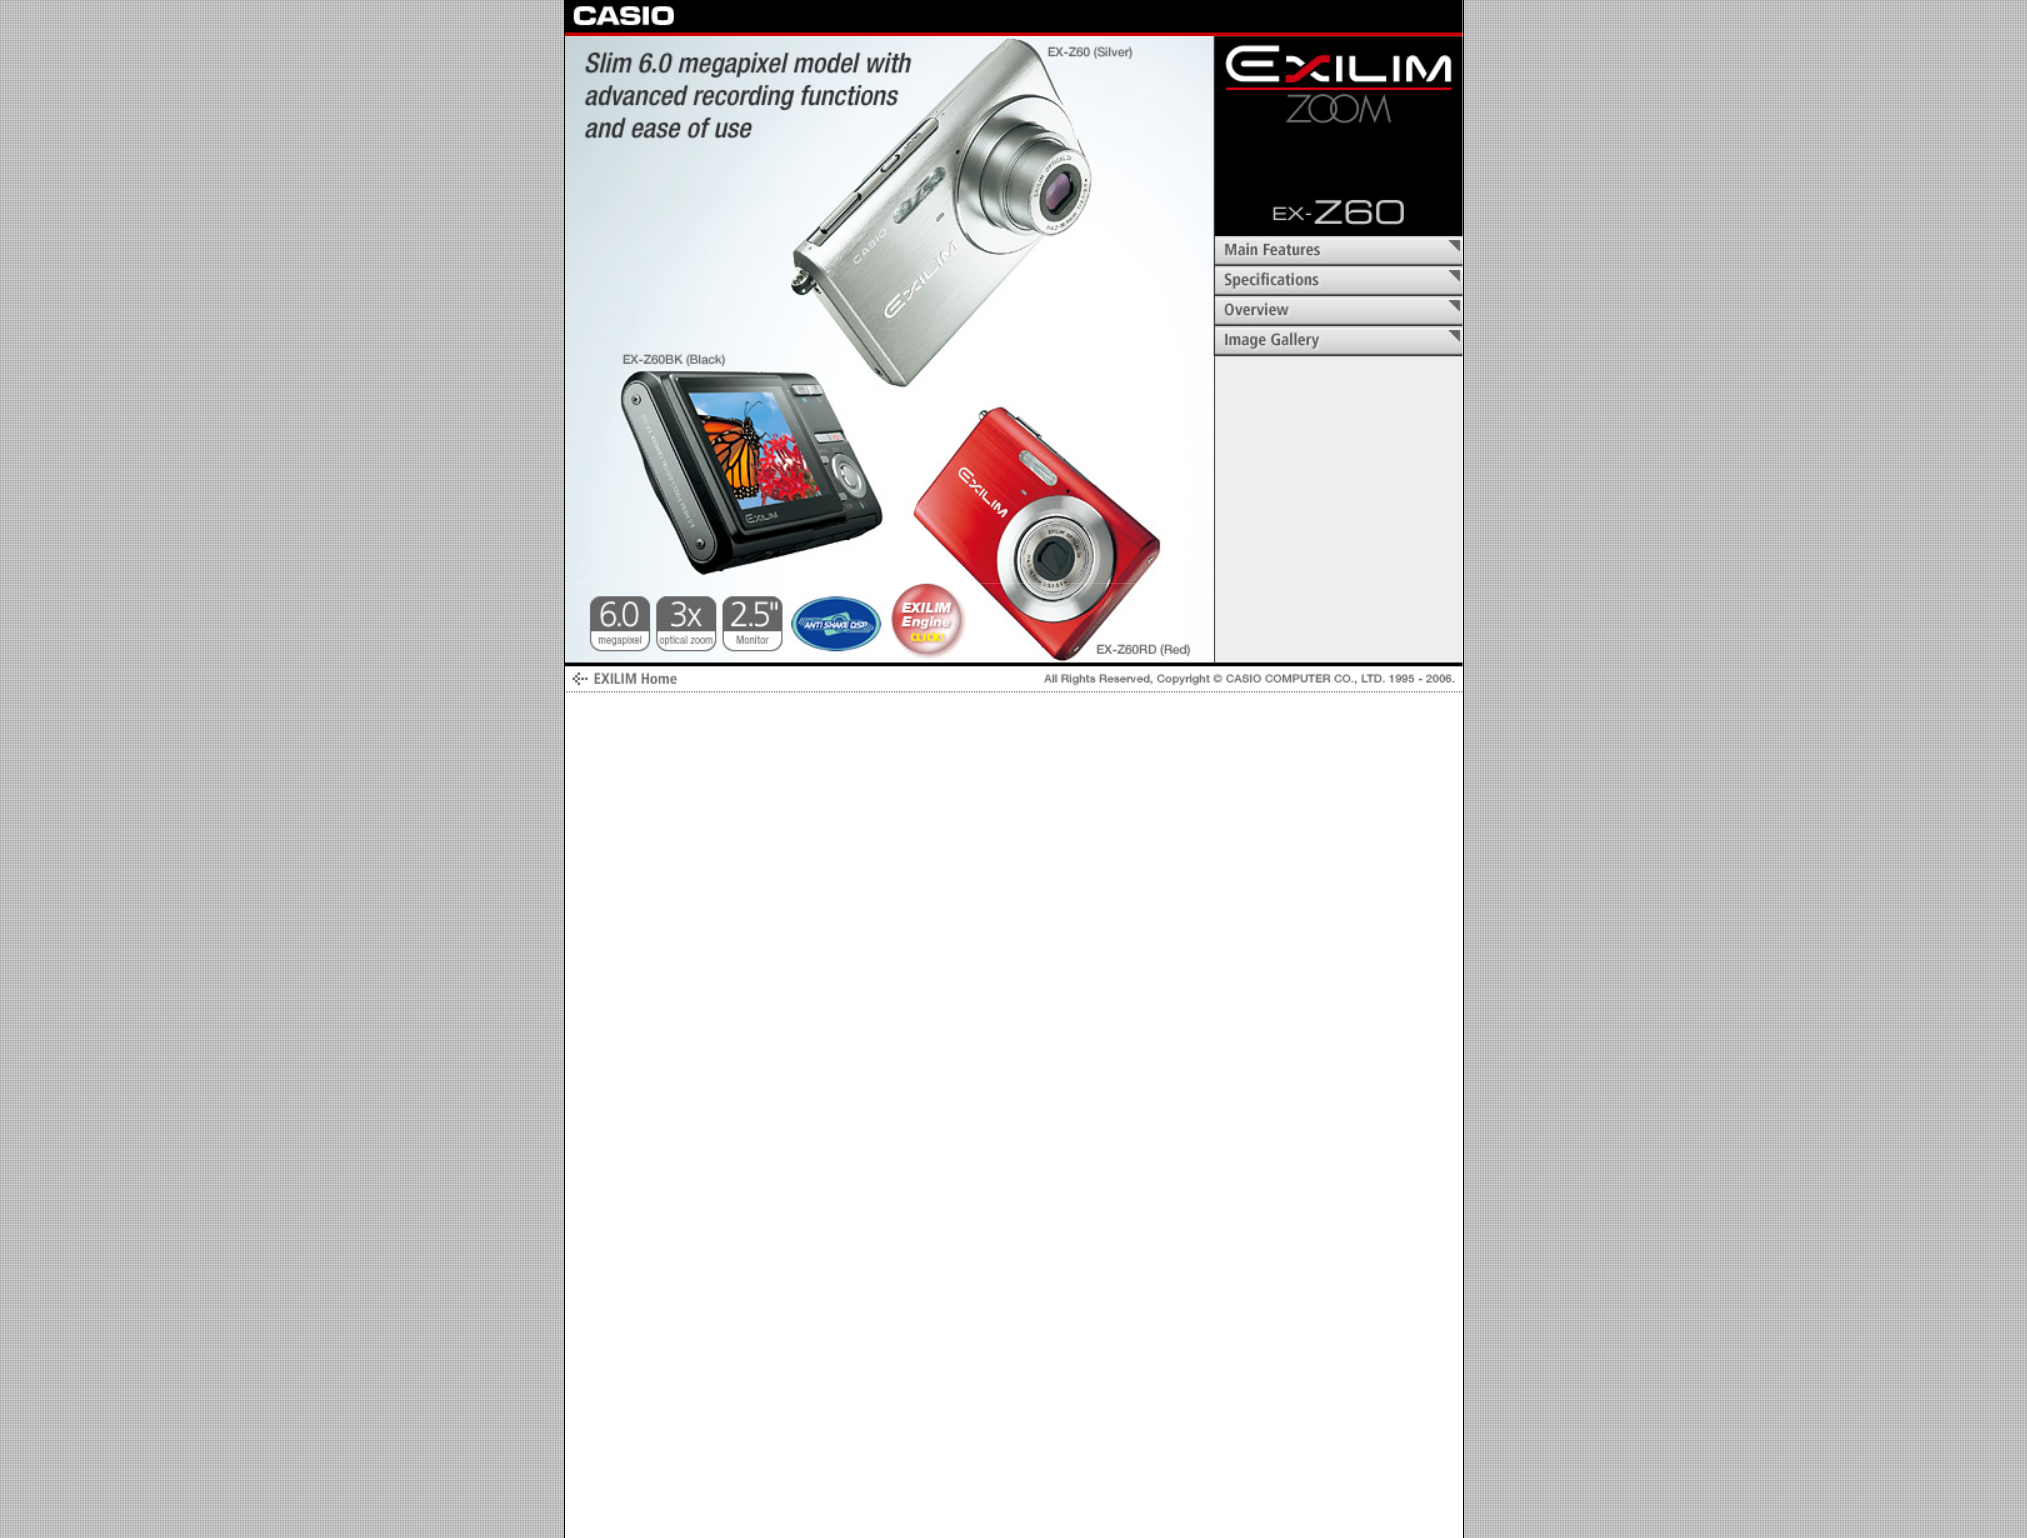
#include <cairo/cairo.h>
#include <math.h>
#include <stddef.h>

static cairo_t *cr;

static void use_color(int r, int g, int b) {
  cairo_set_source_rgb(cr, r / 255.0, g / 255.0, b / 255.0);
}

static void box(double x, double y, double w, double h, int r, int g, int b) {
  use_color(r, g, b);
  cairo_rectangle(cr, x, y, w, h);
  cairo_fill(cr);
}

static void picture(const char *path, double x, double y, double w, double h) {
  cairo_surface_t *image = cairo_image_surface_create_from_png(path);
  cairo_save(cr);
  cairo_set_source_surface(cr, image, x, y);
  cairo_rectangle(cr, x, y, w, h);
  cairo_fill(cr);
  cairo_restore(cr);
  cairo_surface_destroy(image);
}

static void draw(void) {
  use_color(255, 255, 255);
  cairo_paint(cr);
  picture("img_01.png", 0, 0, 2027, 1538);
  box(564, 0, 1, 1538, 0, 0, 0);
  box(565, 0, 898, 1538, 255, 255, 255);
  picture("img_08.png", 1213, 36, 250, 627);
  picture("img_02.png", 565, 0, 898, 37);
  picture("img_03.png", 565, 36, 649, 334);
  picture("img_04.png", 565, 370, 649, 214);
  picture("img_05.png", 565, 584, 320, 79);
  picture("img_06.png", 891, 583, 76, 77);
  picture("img_07.png", 978, 583, 236, 80);
  picture("img_09.png", 1213, 36, 250, 201);
  picture("img_10.png", 1213, 236, 250, 31);
  picture("img_11.png", 1213, 266, 250, 31);
  picture("img_12.png", 1213, 296, 250, 31);
  picture("img_13.png", 1213, 326, 250, 31);
  picture("img_14.png", 565, 662, 150, 31);
  picture("img_15.png", 715, 662, 748, 31);
  box(1463, 0, 1, 1538, 0, 0, 0);
}

int main(void) {
  cairo_surface_t *surface = cairo_image_surface_create(CAIRO_FORMAT_RGB24, 2027, 1538);
  cr = cairo_create(surface);
  cairo_font_options_t *options = cairo_font_options_create();
  cairo_font_options_set_hint_metrics(options, CAIRO_HINT_METRICS_OFF);
  cairo_font_options_set_hint_style(options, CAIRO_HINT_STYLE_NONE);
  cairo_set_font_options(cr, options);
  cairo_set_miter_limit(cr, 4);
  draw();
  cairo_surface_write_to_png(surface, "out.png");
  cairo_font_options_destroy(options);
  cairo_destroy(cr);
  cairo_surface_destroy(surface);
  return 0;
}
